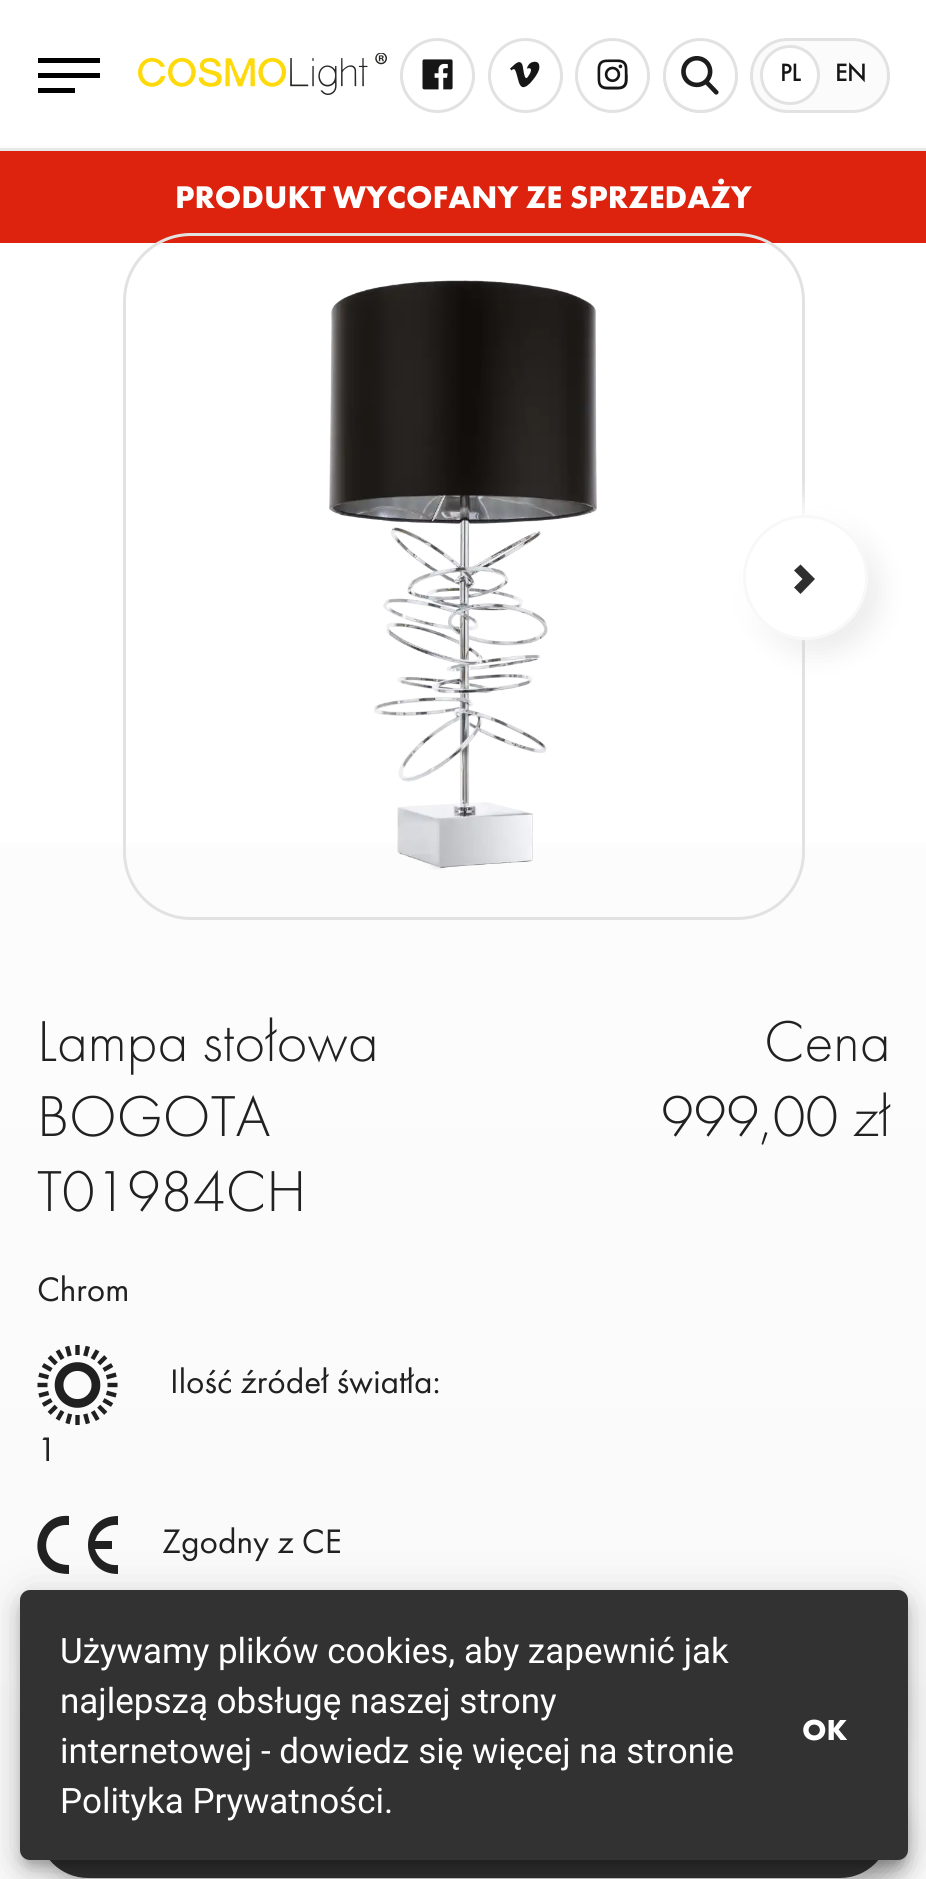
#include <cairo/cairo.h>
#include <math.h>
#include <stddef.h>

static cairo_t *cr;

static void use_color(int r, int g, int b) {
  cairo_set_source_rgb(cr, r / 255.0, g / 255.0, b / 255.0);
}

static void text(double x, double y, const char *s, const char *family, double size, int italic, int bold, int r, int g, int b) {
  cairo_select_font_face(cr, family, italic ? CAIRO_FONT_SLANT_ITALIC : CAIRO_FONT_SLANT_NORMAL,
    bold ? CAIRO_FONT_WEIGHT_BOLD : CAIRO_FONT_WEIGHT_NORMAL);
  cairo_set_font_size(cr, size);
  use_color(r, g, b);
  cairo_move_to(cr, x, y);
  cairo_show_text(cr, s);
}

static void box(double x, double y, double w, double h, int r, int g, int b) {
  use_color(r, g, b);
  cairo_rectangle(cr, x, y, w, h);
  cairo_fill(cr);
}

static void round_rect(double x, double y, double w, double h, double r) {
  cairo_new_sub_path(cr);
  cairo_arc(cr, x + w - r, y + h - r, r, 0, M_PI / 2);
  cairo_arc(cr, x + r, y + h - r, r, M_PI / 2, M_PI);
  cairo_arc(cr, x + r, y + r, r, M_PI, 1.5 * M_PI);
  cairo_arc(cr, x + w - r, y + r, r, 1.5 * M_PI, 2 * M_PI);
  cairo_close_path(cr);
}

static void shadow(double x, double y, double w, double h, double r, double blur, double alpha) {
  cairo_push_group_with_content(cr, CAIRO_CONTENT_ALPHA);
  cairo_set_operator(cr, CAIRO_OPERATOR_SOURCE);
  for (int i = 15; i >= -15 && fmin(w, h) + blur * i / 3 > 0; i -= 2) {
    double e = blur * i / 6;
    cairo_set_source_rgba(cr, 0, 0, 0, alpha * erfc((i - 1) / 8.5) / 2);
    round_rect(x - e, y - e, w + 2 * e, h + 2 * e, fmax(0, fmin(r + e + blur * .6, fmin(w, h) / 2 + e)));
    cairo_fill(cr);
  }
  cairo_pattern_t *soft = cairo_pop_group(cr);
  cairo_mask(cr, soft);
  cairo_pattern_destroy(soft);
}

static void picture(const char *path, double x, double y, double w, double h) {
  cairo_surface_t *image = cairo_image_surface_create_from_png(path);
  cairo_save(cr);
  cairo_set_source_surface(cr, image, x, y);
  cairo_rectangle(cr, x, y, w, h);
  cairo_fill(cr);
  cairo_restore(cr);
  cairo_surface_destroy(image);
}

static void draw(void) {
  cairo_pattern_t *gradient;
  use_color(255, 255, 255);
  cairo_paint(cr);
  box(0, 148, 926, 3, 232, 232, 232);
  box(38, 58, 62, 5, 0, 0, 0);
  box(38, 73, 62, 5, 0, 0, 0);
  box(38, 88, 37, 5, 0, 0, 0);
  picture("img_01.png", 138, 53, 249, 42);
  cairo_arc(cr, 437.5, 75.5, 36, 0, 2 * M_PI);
  use_color(226, 226, 226);
  cairo_set_line_width(cr, 3);
  cairo_stroke(cr);
  picture("img_02.png", 422, 59, 31, 31);
  cairo_arc(cr, 525.5, 75.5, 36, 0, 2 * M_PI);
  cairo_stroke(cr);
  picture("img_03.png", 510, 61, 30, 27);
  cairo_arc(cr, 612.5, 75.5, 36, 0, 2 * M_PI);
  cairo_stroke(cr);
  picture("img_04.png", 597, 59, 31, 31);
  cairo_new_path(cr);
  cairo_move_to(cr, 664.5, 76.5);
  cairo_line_to(cr, 736.5, 76.5);
  cairo_line_to(cr, 736.5, 75.5);
  cairo_curve_to(cr, 736.5, 95.5, 720.5, 111.5, 700.5, 111.5);
  cairo_curve_to(cr, 680.5, 111.5, 664.5, 95.5, 664.5, 75.5);
  cairo_close_path(cr);
  cairo_stroke(cr);
  use_color(255, 255, 255);
  cairo_arc(cr, 700.5, 75.5, 36, 0, 2 * M_PI);
  cairo_fill_preserve(cr);
  use_color(226, 226, 226);
  cairo_stroke(cr);
  picture("img_05.png", 681, 56, 38, 39);
  use_color(251, 251, 251);
  round_rect(751.5, 39.5, 137, 72, 36);
  cairo_fill_preserve(cr);
  use_color(226, 226, 226);
  cairo_stroke(cr);
  use_color(255, 255, 255);
  cairo_arc(cr, 790, 75, 28.5, 0, 2 * M_PI);
  cairo_fill_preserve(cr);
  use_color(226, 226, 226);
  cairo_stroke(cr);
  gradient = cairo_pattern_create_linear(464, 150, 464, 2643);
  cairo_pattern_add_color_stop_rgba(gradient, 0, 1, 1, 1, 1);
  cairo_pattern_add_color_stop_rgba(gradient, 1, 0.965, 0.965, 0.965, 1);
  cairo_set_source(cr, gradient);
  cairo_pattern_destroy(gradient);
  cairo_rectangle(cr, 0, 843, 926, 1036);
  cairo_fill(cr);
  box(0, 151, 926, 92, 221, 35, 14);
  round_rect(124.5, 234.5, 679, 684, 66.5);
  use_color(226, 226, 226);
  cairo_stroke(cr);
  picture("img_06.png", 329, 280, 268, 590);
  use_color(190, 190, 190);
  shadow(755, 528, 125, 125, 62.5, 12.5, 0.29);
  use_color(255, 255, 255);
  shadow(730, 503, 125, 125, 62.5, 12.5, 1);
  use_color(255, 255, 255);
  cairo_arc(cr, 805.5, 577.5, 61, 0, 2 * M_PI);
  cairo_fill_preserve(cr);
  use_color(248, 248, 248);
  cairo_stroke(cr);
  use_color(47, 47, 47);
  cairo_new_path(cr);
  cairo_move_to(cr, 809, 573);
  cairo_line_to(cr, 800.5, 564.5);
  cairo_line_to(cr, 794, 570.5);
  cairo_line_to(cr, 802.5, 579);
  cairo_line_to(cr, 794, 587.5);
  cairo_line_to(cr, 800.5, 594);
  cairo_line_to(cr, 815, 579);
  cairo_close_path(cr);
  cairo_fill(cr);
  picture("img_07.png", 37, 1345, 81, 80);
  use_color(33, 33, 33);
  cairo_new_path(cr);
  cairo_move_to(cr, 69, 1574);
  cairo_curve_to(cr, 63, 1574, 56, 1573, 51, 1570);
  cairo_curve_to(cr, 25, 1554, 39, 1513, 69, 1516);
  cairo_line_to(cr, 69, 1525);
  cairo_line_to(cr, 66, 1525);
  cairo_curve_to(cr, 41, 1525, 37, 1565, 69, 1565);
  cairo_close_path(cr);
  cairo_move_to(cr, 118, 1574);
  cairo_curve_to(cr, 78, 1574, 78, 1516, 118, 1516);
  cairo_line_to(cr, 118, 1525);
  cairo_curve_to(cr, 109, 1524, 101, 1529, 97, 1536);
  cairo_line_to(cr, 95, 1541);
  cairo_line_to(cr, 112, 1541);
  cairo_line_to(cr, 112, 1549);
  cairo_line_to(cr, 95, 1549);
  cairo_curve_to(cr, 98, 1559, 107, 1566, 118, 1565);
  cairo_close_path(cr);
  cairo_fill(cr);
  use_color(190, 190, 190);
  shadow(50, 1655, 853, 100, 50, 12.5, 0.29);
  use_color(255, 255, 255);
  shadow(25, 1630, 853, 100, 50, 12.5, 1);
  use_color(0, 0, 0);
  shadow(50, 1790, 853, 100, 50, 12.5, 0.23);
  use_color(47, 47, 47);
  round_rect(38, 1778, 852, 100, 50);
  cairo_fill(cr);
  use_color(0, 0, 0);
  shadow(20, 1593, 888, 270, 10, 22.5, 0.12);
  shadow(20, 1605, 888, 270, 10, 12.5, 0.14);
  shadow(23, 1600, 882, 265, 8, 6, 0.2);
  use_color(50, 50, 50);
  round_rect(20, 1590, 888, 270, 10);
  cairo_fill(cr);
  text(780, 81, "PL", "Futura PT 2", 25, 0, 1, 22, 22, 22);
  text(835, 81, "EN", "Futura PT 2", 25, 0, 1, 22, 22, 22);
  text(175, 208, "PRODUKT WYCOFANY ZE SPRZEDAŻY", "Futura PT", 32.5, 0, 1, 255, 255, 255);
  text(37, 1061, "Lampa stołowa", "Futura PT Light", 59.75, 0, 0, 33, 33, 33);
  text(37, 1136, "BOGOTA", "Futura PT Light", 59.75, 0, 0, 33, 33, 33);
  text(37, 1211, "T01984CH", "Futura PT Light", 59.75, 0, 0, 33, 33, 33);
  text(37, 1301, "Chrom", "Futura PT", 35.25, 0, 0, 33, 33, 33);
  text(170, 1393, "Ilość źródeł światła:", "Futura PT", 35.25, 0, 0, 33, 33, 33);
  text(37, 1461, "1", "Futura PT", 35.25, 0, 0, 33, 33, 33);
  text(162, 1553, "Zgodny z CE", "Futura PT", 35.25, 0, 0, 33, 33, 33);
  text(764, 1061, "Cena", "Futura PT Light", 59.75, 0, 0, 33, 33, 33);
  text(661, 1136, "999,00 zł", "Futura PT Light", 59.75, 0, 0, 33, 33, 33);
  text(60, 1663, "Używamy plików cookies, aby zapewnić jak", "Roboto", 35, 0, 0, 255, 255, 255);
  text(60, 1713, "najlepszą obsługę naszej strony", "Roboto", 35, 0, 0, 255, 255, 255);
  text(60, 1763, "internetowej - dowiedz się więcej na stronie", "Roboto", 35, 0, 0, 255, 255, 255);
  text(60, 1813, "Polityka Prywatności.", "Roboto", 35, 0, 0, 255, 255, 255);
  text(802, 1740, "OK", "Futura PT", 30, 0, 1, 255, 255, 255);
}

int main(void) {
  cairo_surface_t *surface = cairo_image_surface_create(CAIRO_FORMAT_RGB24, 926, 1879);
  cr = cairo_create(surface);
  cairo_font_options_t *options = cairo_font_options_create();
  cairo_font_options_set_hint_metrics(options, CAIRO_HINT_METRICS_OFF);
  cairo_font_options_set_hint_style(options, CAIRO_HINT_STYLE_NONE);
  cairo_set_font_options(cr, options);
  cairo_set_miter_limit(cr, 4);
  draw();
  cairo_surface_write_to_png(surface, "out.png");
  cairo_font_options_destroy(options);
  cairo_destroy(cr);
  cairo_surface_destroy(surface);
  return 0;
}
